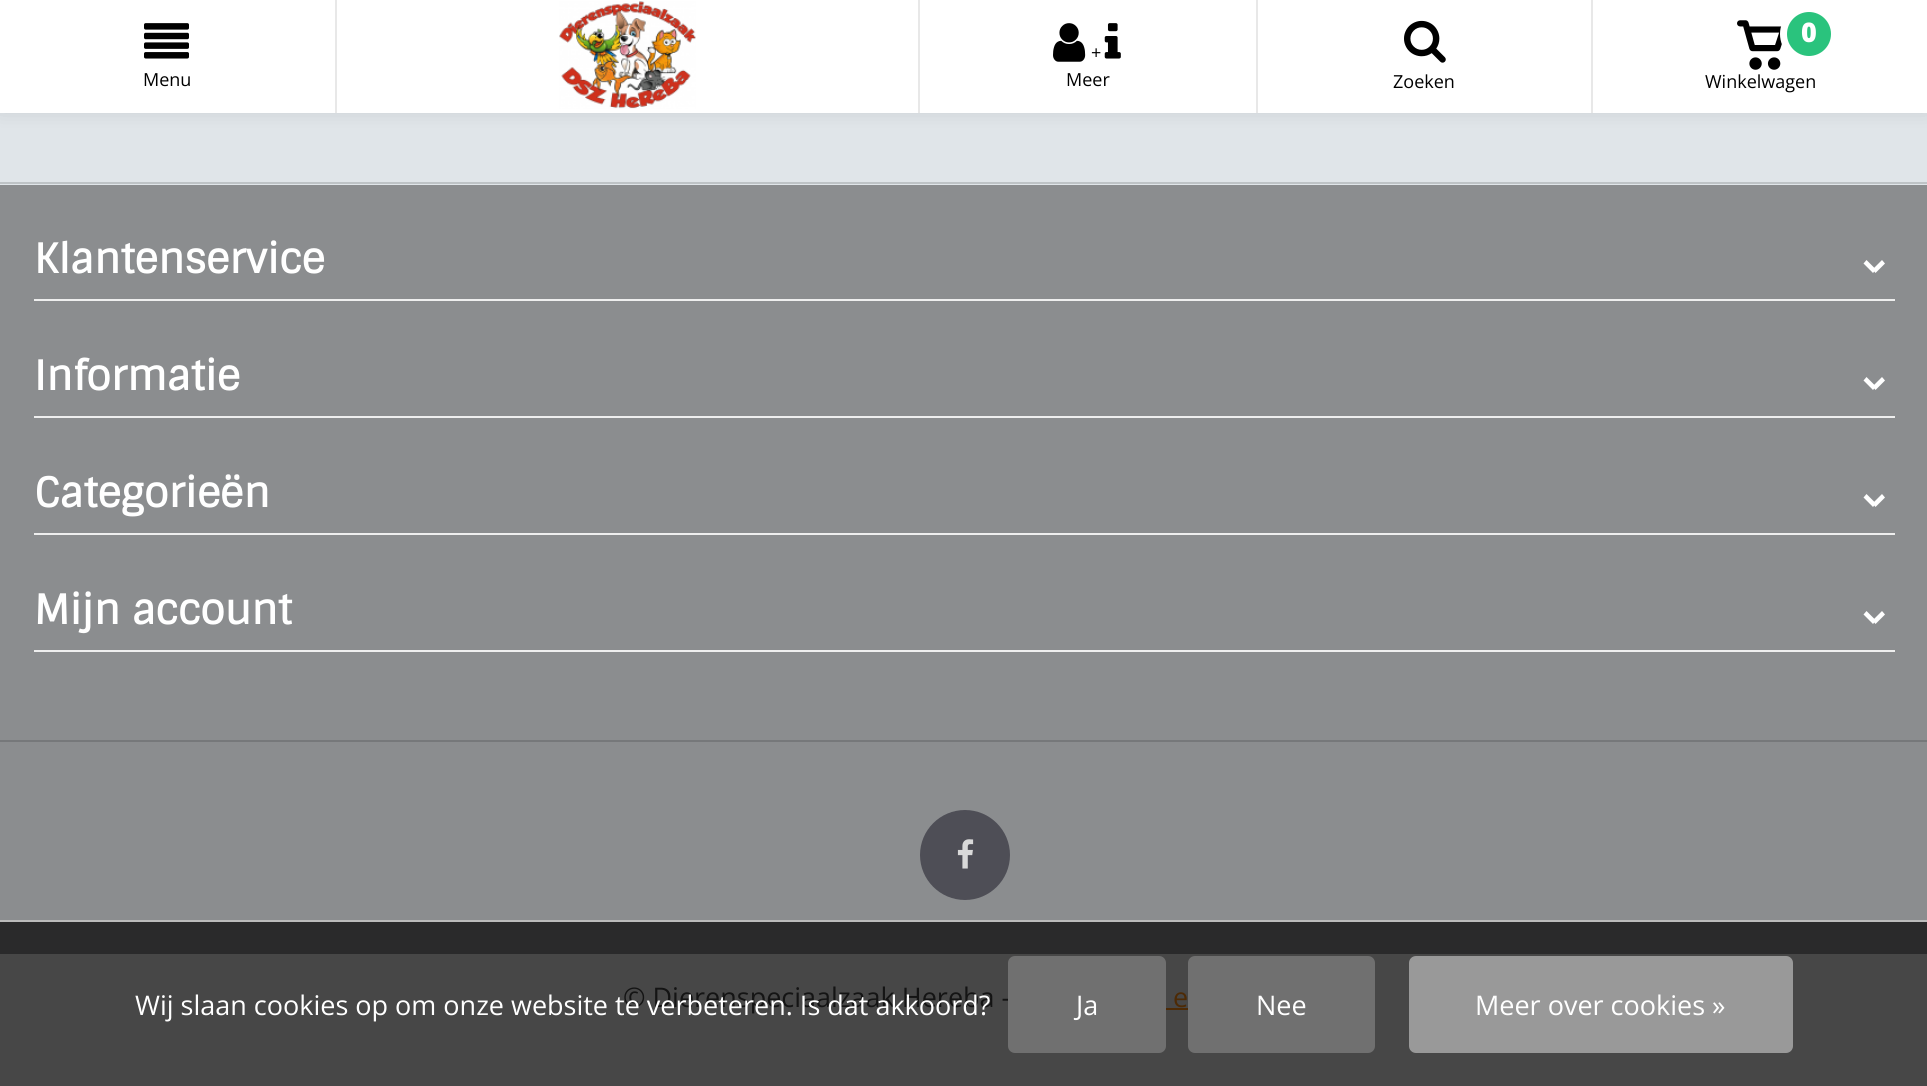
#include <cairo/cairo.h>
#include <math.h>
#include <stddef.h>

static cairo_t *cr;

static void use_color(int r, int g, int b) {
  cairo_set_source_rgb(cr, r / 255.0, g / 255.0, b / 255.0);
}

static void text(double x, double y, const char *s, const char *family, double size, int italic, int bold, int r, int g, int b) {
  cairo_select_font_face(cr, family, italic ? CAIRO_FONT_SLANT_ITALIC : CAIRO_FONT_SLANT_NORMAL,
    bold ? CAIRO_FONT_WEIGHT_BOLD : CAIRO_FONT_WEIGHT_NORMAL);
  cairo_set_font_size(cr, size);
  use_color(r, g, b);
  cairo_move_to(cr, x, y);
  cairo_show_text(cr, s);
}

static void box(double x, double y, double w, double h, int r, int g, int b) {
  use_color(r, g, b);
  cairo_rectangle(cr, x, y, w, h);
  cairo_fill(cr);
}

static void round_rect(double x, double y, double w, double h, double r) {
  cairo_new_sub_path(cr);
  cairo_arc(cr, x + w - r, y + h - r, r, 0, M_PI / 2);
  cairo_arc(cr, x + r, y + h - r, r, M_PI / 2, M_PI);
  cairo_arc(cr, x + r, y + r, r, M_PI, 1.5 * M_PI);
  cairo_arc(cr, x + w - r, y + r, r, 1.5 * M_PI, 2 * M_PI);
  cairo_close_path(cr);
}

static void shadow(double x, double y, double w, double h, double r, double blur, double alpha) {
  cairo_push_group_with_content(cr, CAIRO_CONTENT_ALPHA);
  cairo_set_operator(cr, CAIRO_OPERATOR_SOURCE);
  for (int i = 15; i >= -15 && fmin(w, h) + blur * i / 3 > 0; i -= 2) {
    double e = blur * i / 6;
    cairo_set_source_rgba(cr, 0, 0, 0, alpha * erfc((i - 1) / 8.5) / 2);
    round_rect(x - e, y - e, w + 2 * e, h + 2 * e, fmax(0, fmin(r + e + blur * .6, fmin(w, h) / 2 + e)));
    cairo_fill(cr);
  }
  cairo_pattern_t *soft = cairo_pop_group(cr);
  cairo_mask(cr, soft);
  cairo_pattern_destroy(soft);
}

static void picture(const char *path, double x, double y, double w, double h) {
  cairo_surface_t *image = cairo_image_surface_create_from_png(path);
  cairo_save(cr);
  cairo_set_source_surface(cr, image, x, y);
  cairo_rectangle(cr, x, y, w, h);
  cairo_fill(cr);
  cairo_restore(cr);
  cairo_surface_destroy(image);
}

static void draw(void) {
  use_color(71, 71, 71);
  cairo_paint(cr);
  box(0, 113, 1927, 72, 224, 229, 233);
  use_color(0, 0, 0);
  shadow(0, -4, 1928, 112, 0, 11, 0.15);
  box(0, 0, 1927, 113, 255, 255, 255);
  box(335, 0, 2, 113, 232, 232, 232);
  picture("img_01.png", 144, 23, 45, 36);
  box(918, 0, 2, 113, 232, 232, 232);
  picture("img_02.png", 559, 1, 137, 108);
  box(1256, 0, 2, 113, 232, 232, 232);
  picture("img_03.png", 1053, 23, 33, 39);
  picture("img_04.png", 1104, 23, 17, 36);
  box(1591, 0, 2, 113, 232, 232, 232);
  picture("img_05.png", 1404, 20, 42, 43);
  picture("img_06.png", 1737, 20, 45, 50);
  use_color(42, 195, 125);
  cairo_arc(cr, 1809, 34, 25.5, 0, 2 * M_PI);
  cairo_fill_preserve(cr);
  use_color(255, 255, 255);
  cairo_set_line_width(cr, 7);
  cairo_stroke(cr);
  box(0, 182, 1927, 2, 190, 195, 198);
  box(0, 185, 1927, 735, 139, 141, 143);
  box(34, 299, 1861, 2, 238, 238, 238);
  use_color(255, 255, 255);
  cairo_new_path(cr);
  cairo_move_to(cr, 1866.5, 260);
  cairo_line_to(cr, 1876, 269.5);
  cairo_line_to(cr, 1873, 273);
  cairo_line_to(cr, 1863.5, 263.5);
  cairo_close_path(cr);
  cairo_fill(cr);
  cairo_new_path(cr);
  cairo_move_to(cr, 1872.5, 269.5);
  cairo_line_to(cr, 1882, 260);
  cairo_line_to(cr, 1885, 263.5);
  cairo_line_to(cr, 1875.5, 273);
  cairo_close_path(cr);
  cairo_fill(cr);
  box(34, 416, 1861, 2, 238, 238, 238);
  use_color(255, 255, 255);
  cairo_new_path(cr);
  cairo_move_to(cr, 1866.5, 377);
  cairo_line_to(cr, 1876, 386.5);
  cairo_line_to(cr, 1873, 390);
  cairo_line_to(cr, 1863.5, 380.5);
  cairo_close_path(cr);
  cairo_fill(cr);
  cairo_new_path(cr);
  cairo_move_to(cr, 1872.5, 386.5);
  cairo_line_to(cr, 1882, 377);
  cairo_line_to(cr, 1885, 380.5);
  cairo_line_to(cr, 1875.5, 390);
  cairo_close_path(cr);
  cairo_fill(cr);
  box(34, 533, 1861, 2, 238, 238, 238);
  use_color(255, 255, 255);
  cairo_new_path(cr);
  cairo_move_to(cr, 1866.5, 494);
  cairo_line_to(cr, 1876, 503.5);
  cairo_line_to(cr, 1873, 507);
  cairo_line_to(cr, 1863.5, 497.5);
  cairo_close_path(cr);
  cairo_fill(cr);
  cairo_new_path(cr);
  cairo_move_to(cr, 1872.5, 503.5);
  cairo_line_to(cr, 1882, 494);
  cairo_line_to(cr, 1885, 497.5);
  cairo_line_to(cr, 1875.5, 507);
  cairo_close_path(cr);
  cairo_fill(cr);
  box(34, 650, 1861, 2, 238, 238, 238);
  use_color(255, 255, 255);
  cairo_new_path(cr);
  cairo_move_to(cr, 1866.5, 611);
  cairo_line_to(cr, 1876, 620.5);
  cairo_line_to(cr, 1873, 624);
  cairo_line_to(cr, 1863.5, 614.5);
  cairo_close_path(cr);
  cairo_fill(cr);
  cairo_new_path(cr);
  cairo_move_to(cr, 1872.5, 620.5);
  cairo_line_to(cr, 1882, 611);
  cairo_line_to(cr, 1885, 614.5);
  cairo_line_to(cr, 1875.5, 624);
  cairo_close_path(cr);
  cairo_fill(cr);
  box(0, 740, 1927, 2, 118, 120, 122);
  box(0, 922, 1927, 32, 42, 42, 43);
  use_color(78, 78, 86);
  cairo_arc(cr, 965, 855, 45, 0, 2 * M_PI);
  cairo_fill(cr);
  picture("img_07.png", 957, 839, 17, 30);
  box(1166, 1008, 22, 2, 77, 42, 5);
  box(0, 920, 1927, 2, 187, 187, 187);
  use_color(112, 112, 112);
  round_rect(1188, 956, 187, 97, 7);
  cairo_fill(cr);
  use_color(153, 153, 153);
  round_rect(1409, 956, 384, 97, 7);
  cairo_fill(cr);
  text(143, 86, "Menu", "Open Sans", 18, 0, 0, 0, 0, 0);
  text(1091, 59, "+", "Open Sans", 18, 0, 0, 0, 0, 0);
  text(1066, 86, "Meer", "Open Sans", 18, 0, 0, 0, 0, 0);
  text(1393, 88, "Zoeken", "Open Sans", 18, 0, 0, 0, 0, 0);
  text(1801, 42, "0", "Open Sans ExtraBold", 27, 0, 0, 255, 255, 255);
  text(1705, 88, "Winkelwagen", "Open Sans", 18, 0, 0, 0, 0, 0);
  text(34, 273, "Klantenservice", "Sintony", 40.5, 0, 1, 255, 255, 255);
  text(34, 390, "Informatie", "Sintony", 40.5, 0, 1, 255, 255, 255);
  text(34, 507, "Categorieën", "Sintony", 40.5, 0, 1, 255, 255, 255);
  text(34, 624, "Mijn account", "Sintony", 40.5, 0, 1, 255, 255, 255);
  text(623, 1007, "© Dierenspeciaalzaak Hereba -", "Open Sans", 27, 0, 0, 20, 20, 20);
  text(1173, 1007, "e", "Open Sans", 27, 0, 0, 77, 42, 5);
  text(135, 1015, "Wij slaan cookies op om onze website te verbeteren. Is dat akkoord?", "Open Sans", 27, 0, 0, 255, 255, 255);
  use_color(112, 112, 112);
  round_rect(1008, 956, 158, 97, 7);
  cairo_fill(cr);
  text(1076, 1015, "Ja", "Open Sans", 27, 0, 0, 255, 255, 255);
  text(1256, 1015, "Nee", "Open Sans", 27, 0, 0, 255, 255, 255);
  text(1475, 1015, "Meer over cookies »", "Open Sans", 27, 0, 0, 255, 255, 255);
}

int main(void) {
  cairo_surface_t *surface = cairo_image_surface_create(CAIRO_FORMAT_RGB24, 1927, 1086);
  cr = cairo_create(surface);
  cairo_font_options_t *options = cairo_font_options_create();
  cairo_font_options_set_hint_metrics(options, CAIRO_HINT_METRICS_OFF);
  cairo_font_options_set_hint_style(options, CAIRO_HINT_STYLE_NONE);
  cairo_set_font_options(cr, options);
  cairo_set_miter_limit(cr, 4);
  draw();
  cairo_surface_write_to_png(surface, "out.png");
  cairo_font_options_destroy(options);
  cairo_destroy(cr);
  cairo_surface_destroy(surface);
  return 0;
}
